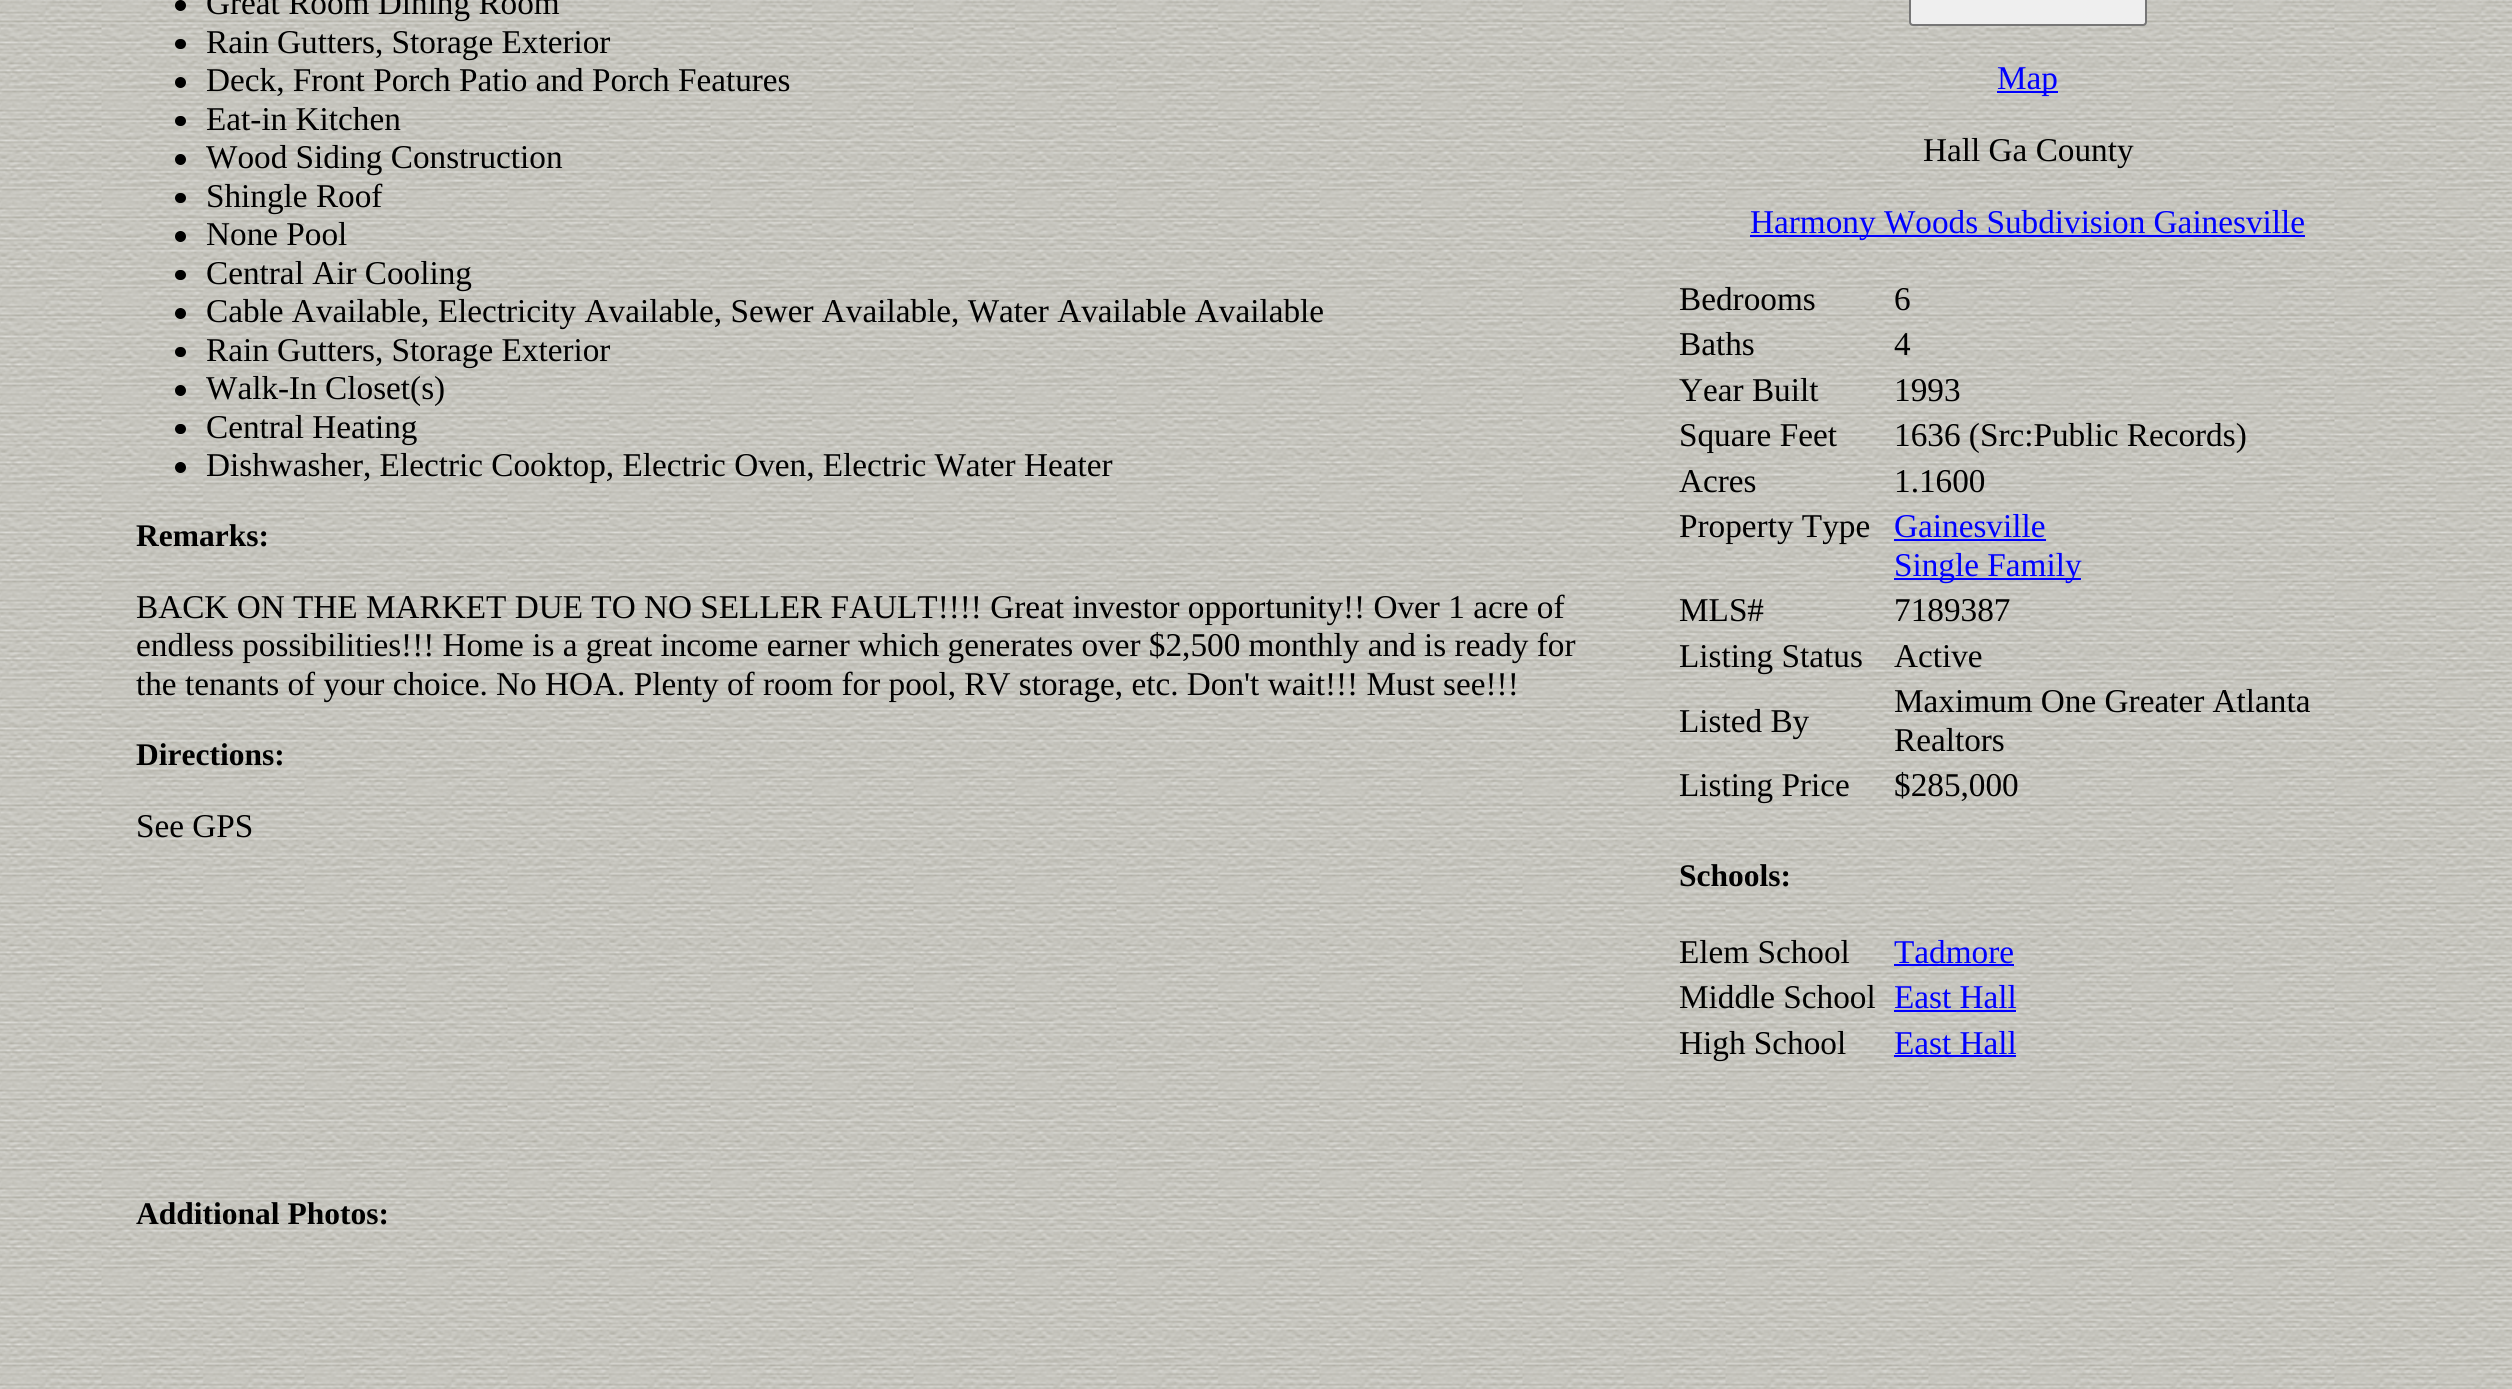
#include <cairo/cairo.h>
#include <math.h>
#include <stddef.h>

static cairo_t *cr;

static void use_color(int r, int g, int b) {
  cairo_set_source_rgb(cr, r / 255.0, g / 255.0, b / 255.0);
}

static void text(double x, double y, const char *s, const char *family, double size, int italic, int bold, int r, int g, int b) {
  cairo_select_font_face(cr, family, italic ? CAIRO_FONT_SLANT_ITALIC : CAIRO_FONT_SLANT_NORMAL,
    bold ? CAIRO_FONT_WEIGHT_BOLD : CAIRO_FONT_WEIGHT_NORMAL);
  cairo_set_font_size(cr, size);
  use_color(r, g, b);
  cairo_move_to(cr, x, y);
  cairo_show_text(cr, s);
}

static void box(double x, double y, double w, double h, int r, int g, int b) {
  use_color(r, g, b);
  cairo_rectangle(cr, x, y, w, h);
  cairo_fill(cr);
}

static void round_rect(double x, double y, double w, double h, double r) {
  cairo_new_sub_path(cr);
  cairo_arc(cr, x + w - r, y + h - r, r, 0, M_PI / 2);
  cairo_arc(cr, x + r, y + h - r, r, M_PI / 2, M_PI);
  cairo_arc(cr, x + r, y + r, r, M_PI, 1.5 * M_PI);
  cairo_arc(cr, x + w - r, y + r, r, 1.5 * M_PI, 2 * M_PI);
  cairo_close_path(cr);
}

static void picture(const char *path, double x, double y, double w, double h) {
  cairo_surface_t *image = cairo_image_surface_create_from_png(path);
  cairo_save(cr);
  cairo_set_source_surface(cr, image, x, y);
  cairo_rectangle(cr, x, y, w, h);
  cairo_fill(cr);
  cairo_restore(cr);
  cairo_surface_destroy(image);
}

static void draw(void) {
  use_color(255, 255, 255);
  cairo_paint(cr);
  picture("img_01.png", 0, 0, 2512, 1389);
  use_color(0, 0, 0);
  cairo_arc(cr, 180.5, 5.5, 5.5, 0, 2 * M_PI);
  cairo_fill(cr);
  round_rect(175, 39, 11, 10, 5);
  cairo_fill(cr);
  cairo_arc(cr, 180.5, 82.5, 5.5, 0, 2 * M_PI);
  cairo_fill(cr);
  round_rect(175, 116, 11, 10, 5);
  cairo_fill(cr);
  cairo_arc(cr, 180.5, 159.5, 5.5, 0, 2 * M_PI);
  cairo_fill(cr);
  round_rect(175, 193, 11, 10, 5);
  cairo_fill(cr);
  cairo_arc(cr, 180.5, 236.5, 5.5, 0, 2 * M_PI);
  cairo_fill(cr);
  round_rect(175, 270, 11, 10, 5);
  cairo_fill(cr);
  cairo_arc(cr, 180.5, 313.5, 5.5, 0, 2 * M_PI);
  cairo_fill(cr);
  round_rect(175, 347, 11, 10, 5);
  cairo_fill(cr);
  cairo_arc(cr, 180.5, 390.5, 5.5, 0, 2 * M_PI);
  cairo_fill(cr);
  round_rect(175, 424, 11, 10, 5);
  cairo_fill(cr);
  cairo_arc(cr, 180.5, 467.5, 5.5, 0, 2 * M_PI);
  cairo_fill(cr);
  use_color(239, 239, 239);
  round_rect(1910, -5, 236, 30, 3);
  cairo_fill_preserve(cr);
  use_color(118, 118, 118);
  cairo_stroke(cr);
  box(1997, 91, 61, 2, 0, 0, 255);
  box(1750, 235, 555, 2, 0, 0, 255);
  box(1894, 539, 152, 2, 0, 0, 255);
  box(1894, 578, 187, 2, 0, 0, 255);
  box(1894, 964, 120, 2, 0, 0, 255);
  box(1894, 1010, 122, 2, 0, 0, 255);
  box(1894, 1055, 122, 2, 0, 0, 255);
  text(206, 14, "Great Room Dining Room", "Liberation Serif", 33.25, 0, 0, 0, 0, 0);
  text(206, 53, "Rain Gutters, Storage Exterior", "Liberation Serif", 33.25, 0, 0, 0, 0, 0);
  text(206, 91, "Deck, Front Porch Patio and Porch Features", "Liberation Serif", 33.25, 0, 0, 0, 0, 0);
  text(206, 130, "Eat-in Kitchen", "Liberation Serif", 33.25, 0, 0, 0, 0, 0);
  text(206, 168, "Wood Siding Construction", "Liberation Serif", 33.25, 0, 0, 0, 0, 0);
  text(206, 207, "Shingle Roof", "Liberation Serif", 33.25, 0, 0, 0, 0, 0);
  text(206, 245, "None Pool", "Liberation Serif", 33.25, 0, 0, 0, 0, 0);
  text(206, 284, "Central Air Cooling", "Liberation Serif", 33.25, 0, 0, 0, 0, 0);
  text(206, 322, "Cable Available, Electricity Available, Sewer Available, Water Available Available", "Liberation Serif", 33.25, 0, 0, 0, 0, 0);
  text(206, 361, "Rain Gutters, Storage Exterior", "Liberation Serif", 33.25, 0, 0, 0, 0, 0);
  text(206, 399, "Walk-In Closet(s)", "Liberation Serif", 33.25, 0, 0, 0, 0, 0);
  text(206, 438, "Central Heating", "Liberation Serif", 33.25, 0, 0, 0, 0, 0);
  text(206, 476, "Dishwasher, Electric Cooktop, Electric Oven, Electric Water Heater", "Liberation Serif", 33.25, 0, 0, 0, 0, 0);
  text(136, 546, "Remarks:", "Liberation Serif", 31.5, 0, 1, 0, 0, 0);
  text(136, 618, "BACK ON THE MARKET DUE TO NO SELLER FAULT!!!! Great investor opportunity!! Over 1 acre of", "Liberation Serif", 33.25, 0, 0, 0, 0, 0);
  text(136, 656, "endless possibilities!!! Home is a great income earner which generates over $2,500 monthly and is ready for", "Liberation Serif", 33.25, 0, 0, 0, 0, 0);
  text(136, 695, "the tenants of your choice. No HOA. Plenty of room for pool, RV storage, etc. Don't wait!!! Must see!!!", "Liberation Serif", 33.25, 0, 0, 0, 0, 0);
  text(136, 765, "Directions:", "Liberation Serif", 31.5, 0, 1, 0, 0, 0);
  text(136, 837, "See GPS", "Liberation Serif", 33.25, 0, 0, 0, 0, 0);
  text(1997, 89, "Map", "Liberation Serif", 33.25, 0, 0, 0, 0, 255);
  text(1923, 161, "Hall Ga County", "Liberation Serif", 33.25, 0, 0, 0, 0, 0);
  text(1750, 233, "Harmony Woods Subdivision Gainesville", "Liberation Serif", 33.25, 0, 0, 0, 0, 255);
  text(1679, 310, "Bedrooms", "Liberation Serif", 33.25, 0, 0, 0, 0, 0);
  text(1894, 310, "6", "Liberation Serif", 33.25, 0, 0, 0, 0, 0);
  text(1679, 355, "Baths", "Liberation Serif", 33.25, 0, 0, 0, 0, 0);
  text(1894, 355, "4", "Liberation Serif", 33.25, 0, 0, 0, 0, 0);
  text(1679, 401, "Year Built", "Liberation Serif", 33.25, 0, 0, 0, 0, 0);
  text(1894, 401, "1993", "Liberation Serif", 33.25, 0, 0, 0, 0, 0);
  text(1679, 446, "Square Feet", "Liberation Serif", 33.25, 0, 0, 0, 0, 0);
  text(1894, 446, "1636 (Src:Public Records)", "Liberation Serif", 33.25, 0, 0, 0, 0, 0);
  text(1679, 492, "Acres", "Liberation Serif", 33.25, 0, 0, 0, 0, 0);
  text(1894, 492, "1.1600", "Liberation Serif", 33.25, 0, 0, 0, 0, 0);
  text(1679, 537, "Property Type", "Liberation Serif", 33.25, 0, 0, 0, 0, 0);
  text(1894, 537, "Gainesville", "Liberation Serif", 33.25, 0, 0, 0, 0, 255);
  text(1894, 576, "Single Family", "Liberation Serif", 33.25, 0, 0, 0, 0, 255);
  text(1679, 621, "MLS#", "Liberation Serif", 33.25, 0, 0, 0, 0, 0);
  text(1894, 621, "7189387", "Liberation Serif", 33.25, 0, 0, 0, 0, 0);
  text(1679, 667, "Listing Status", "Liberation Serif", 33.25, 0, 0, 0, 0, 0);
  text(1894, 667, "Active", "Liberation Serif", 33.25, 0, 0, 0, 0, 0);
  text(1679, 732, "Listed By", "Liberation Serif", 33.25, 0, 0, 0, 0, 0);
  text(1894, 712, "Maximum One Greater Atlanta", "Liberation Serif", 33.25, 0, 0, 0, 0, 0);
  text(1894, 751, "Realtors", "Liberation Serif", 33.25, 0, 0, 0, 0, 0);
  text(1679, 796, "Listing Price", "Liberation Serif", 33.25, 0, 0, 0, 0, 0);
  text(1894, 796, "$285,000", "Liberation Serif", 33.25, 0, 0, 0, 0, 0);
  text(1679, 886, "Schools:", "Liberation Serif", 31.5, 0, 1, 0, 0, 0);
  text(1679, 963, "Elem School", "Liberation Serif", 33.25, 0, 0, 0, 0, 0);
  text(1894, 963, "Tadmore", "Liberation Serif", 33.25, 0, 0, 0, 0, 255);
  text(1679, 1008, "Middle School", "Liberation Serif", 33.25, 0, 0, 0, 0, 0);
  text(1894, 1008, "East Hall", "Liberation Serif", 33.25, 0, 0, 0, 0, 255);
  text(1679, 1054, "High School", "Liberation Serif", 33.25, 0, 0, 0, 0, 0);
  text(1894, 1054, "East Hall", "Liberation Serif", 33.25, 0, 0, 0, 0, 255);
  text(136, 1224, "Additional Photos:", "Liberation Serif", 31.5, 0, 1, 0, 0, 0);
}

int main(void) {
  cairo_surface_t *surface = cairo_image_surface_create(CAIRO_FORMAT_RGB24, 2512, 1389);
  cr = cairo_create(surface);
  cairo_font_options_t *options = cairo_font_options_create();
  cairo_font_options_set_hint_metrics(options, CAIRO_HINT_METRICS_OFF);
  cairo_font_options_set_hint_style(options, CAIRO_HINT_STYLE_NONE);
  cairo_set_font_options(cr, options);
  cairo_set_miter_limit(cr, 4);
  draw();
  cairo_surface_write_to_png(surface, "out.png");
  cairo_font_options_destroy(options);
  cairo_destroy(cr);
  cairo_surface_destroy(surface);
  return 0;
}
